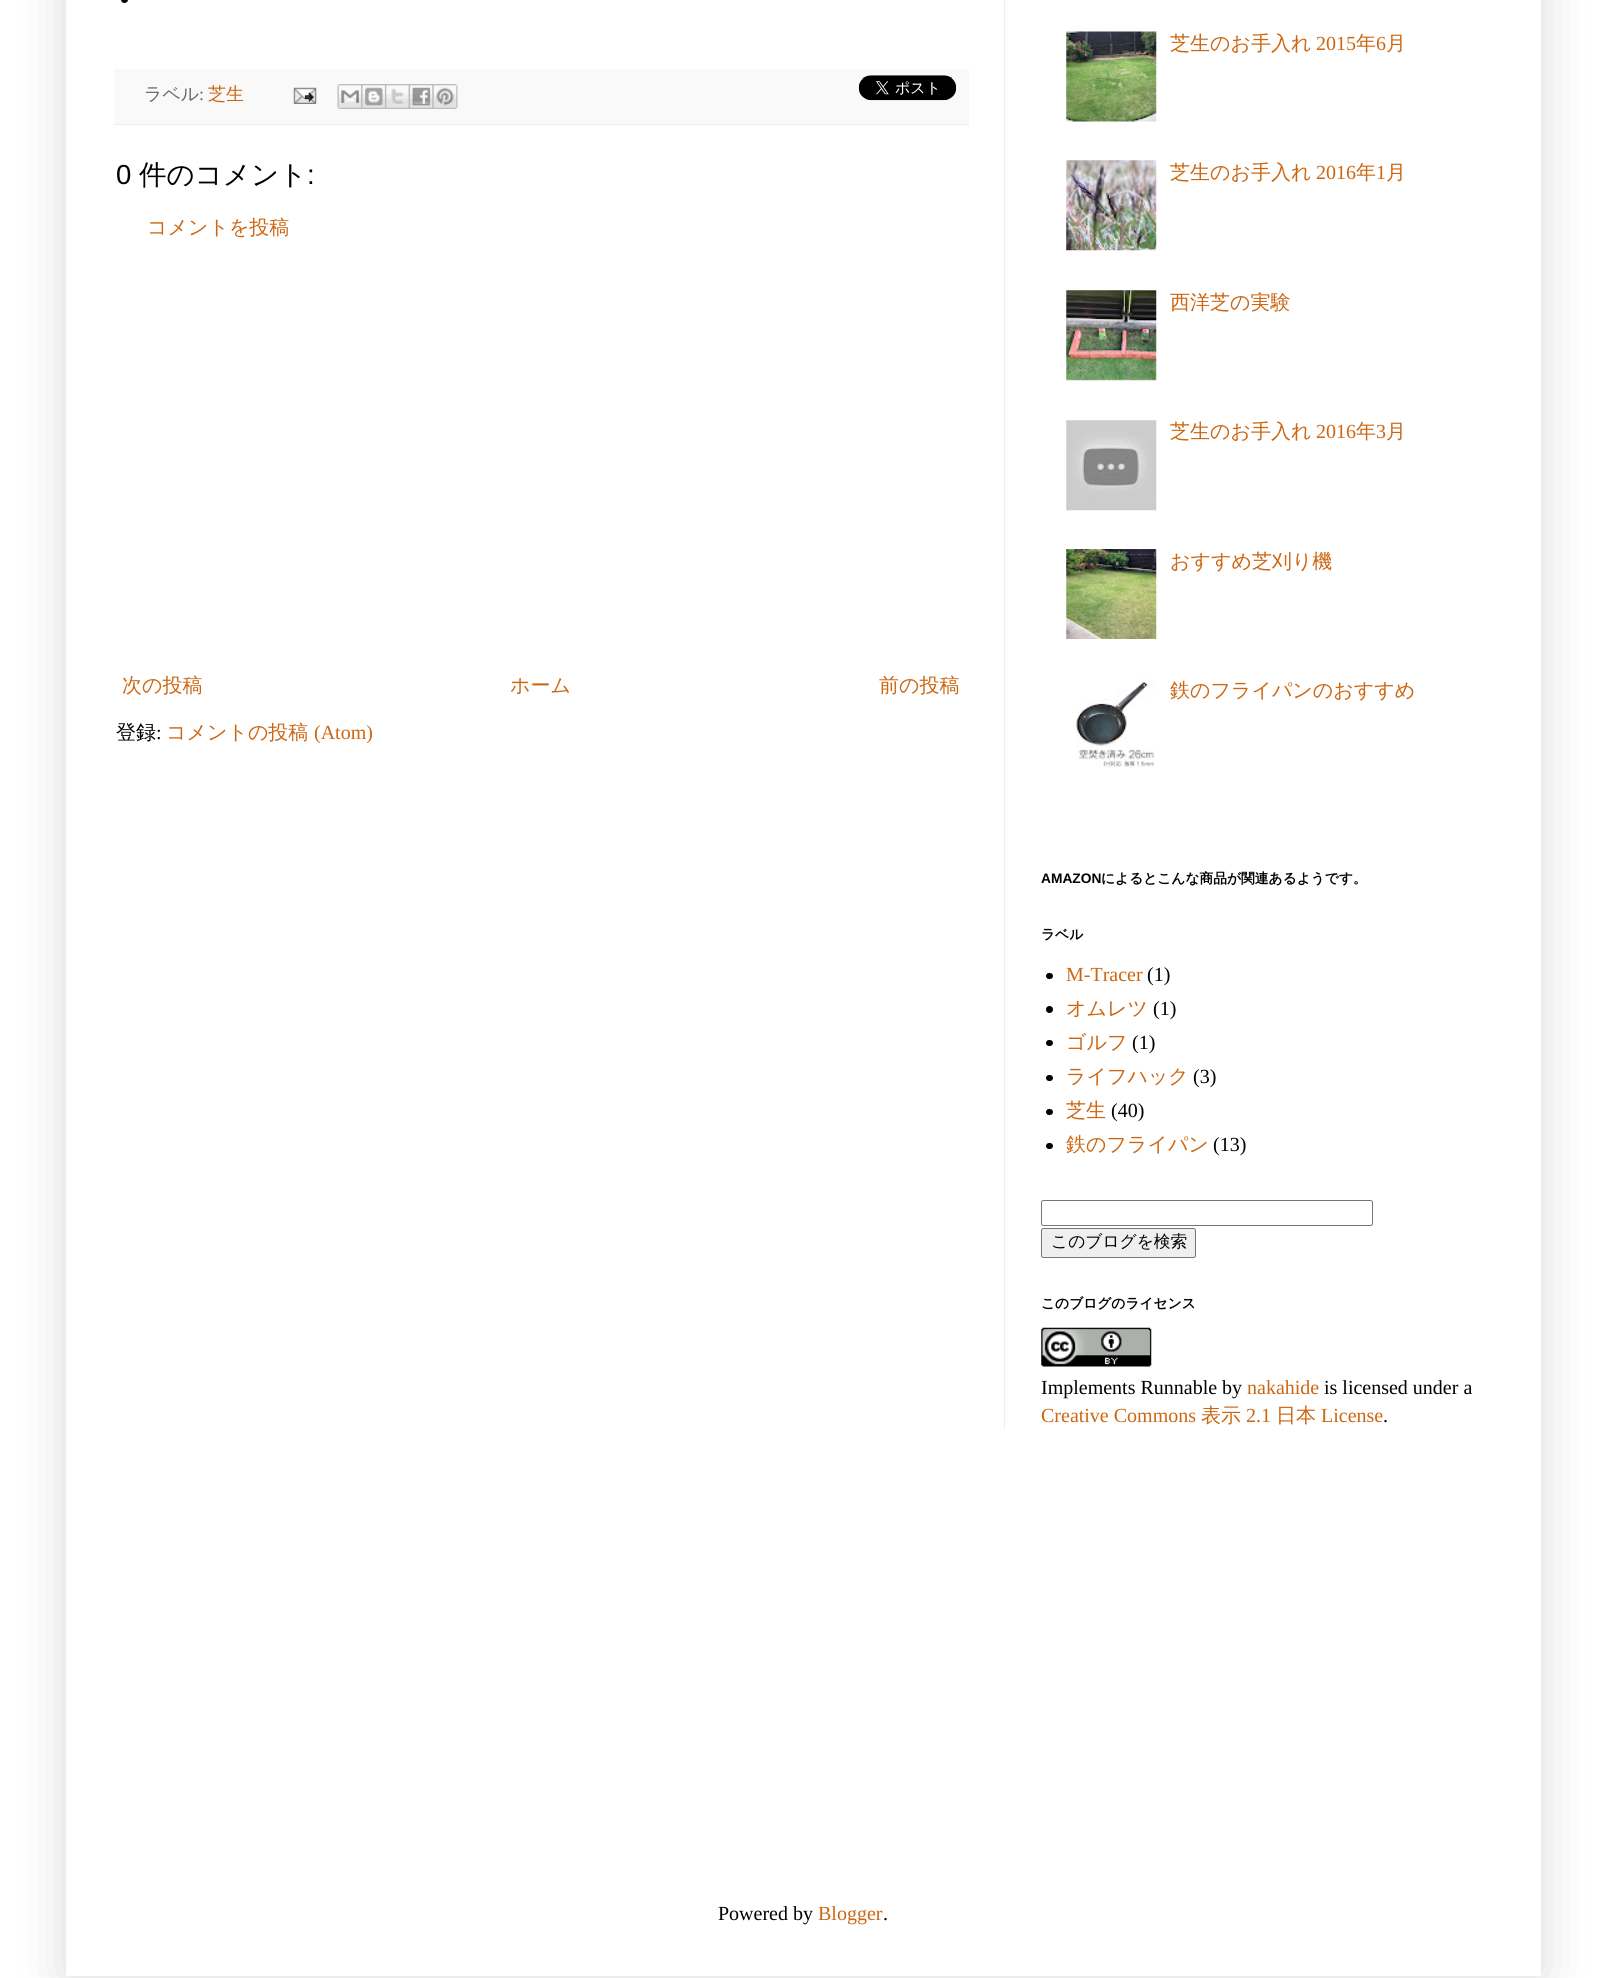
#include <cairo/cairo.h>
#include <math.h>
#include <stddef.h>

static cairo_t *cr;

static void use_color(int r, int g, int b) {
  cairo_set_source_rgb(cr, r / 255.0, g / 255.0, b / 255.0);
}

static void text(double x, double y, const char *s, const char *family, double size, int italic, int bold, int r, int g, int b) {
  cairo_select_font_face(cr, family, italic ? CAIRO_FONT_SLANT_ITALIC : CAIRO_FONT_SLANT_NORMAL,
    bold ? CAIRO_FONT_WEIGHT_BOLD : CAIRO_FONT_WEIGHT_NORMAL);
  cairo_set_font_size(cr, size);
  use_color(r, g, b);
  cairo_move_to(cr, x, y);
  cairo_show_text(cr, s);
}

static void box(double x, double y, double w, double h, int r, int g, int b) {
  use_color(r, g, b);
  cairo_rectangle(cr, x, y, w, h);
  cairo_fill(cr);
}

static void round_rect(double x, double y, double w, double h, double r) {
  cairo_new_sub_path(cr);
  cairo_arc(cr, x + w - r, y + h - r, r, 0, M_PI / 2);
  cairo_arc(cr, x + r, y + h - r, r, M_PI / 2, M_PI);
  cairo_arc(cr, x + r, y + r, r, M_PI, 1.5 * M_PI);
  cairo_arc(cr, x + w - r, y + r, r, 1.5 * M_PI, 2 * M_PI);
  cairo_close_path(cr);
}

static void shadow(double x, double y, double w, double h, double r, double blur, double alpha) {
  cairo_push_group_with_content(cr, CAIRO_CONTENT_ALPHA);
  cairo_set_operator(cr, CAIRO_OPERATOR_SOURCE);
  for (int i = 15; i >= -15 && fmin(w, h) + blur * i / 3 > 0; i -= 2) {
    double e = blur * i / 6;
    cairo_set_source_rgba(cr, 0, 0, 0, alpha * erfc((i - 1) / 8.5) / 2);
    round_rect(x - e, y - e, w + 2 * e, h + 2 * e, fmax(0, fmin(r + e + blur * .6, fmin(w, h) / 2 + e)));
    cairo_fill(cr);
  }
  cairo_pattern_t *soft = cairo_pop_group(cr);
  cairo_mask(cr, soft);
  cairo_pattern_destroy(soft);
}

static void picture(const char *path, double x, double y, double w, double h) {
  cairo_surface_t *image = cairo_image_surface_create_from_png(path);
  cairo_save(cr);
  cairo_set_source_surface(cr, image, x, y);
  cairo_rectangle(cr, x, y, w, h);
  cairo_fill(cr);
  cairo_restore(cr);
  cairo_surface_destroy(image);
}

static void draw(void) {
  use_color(255, 255, 255);
  cairo_paint(cr);
  use_color(0, 0, 0);
  shadow(66, -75, 1475, 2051, 0, 25, 0.15);
  box(66, 0, 1475, 1976, 255, 255, 255);
  box(1004, 0, 1, 1430, 238, 238, 238);
  use_color(0, 0, 0);
  cairo_arc(cr, 124.5, -0.5, 3.5, 0, 2 * M_PI);
  cairo_fill(cr);
  box(114, 69, 855, 55, 249, 249, 249);
  box(114, 124, 855, 1, 238, 238, 238);
  picture("img_01.png", 293, 87, 24, 17);
  picture("img_02.png", 337, 84, 25, 25);
  picture("img_03.png", 361, 84, 24, 25);
  picture("img_04.png", 385, 84, 24, 25);
  picture("img_05.png", 408, 84, 25, 25);
  picture("img_06.png", 432, 84, 26, 25);
  picture("img_07.png", 858, 75, 99, 26);
  picture("img_08.png", 1066, 31, 91, 91);
  picture("img_09.png", 1066, 160, 91, 91);
  picture("img_10.png", 1066, 290, 91, 91);
  picture("img_11.png", 1066, 420, 91, 91);
  picture("img_12.png", 1066, 549, 91, 90);
  picture("img_13.png", 1076, 679, 79, 89);
  use_color(0, 0, 0);
  round_rect(1046, 973, 7, 6, 3);
  cairo_fill(cr);
  cairo_arc(cr, 1049.5, 1009.5, 3.5, 0, 2 * M_PI);
  cairo_fill(cr);
  round_rect(1046, 1040, 7, 6, 3);
  cairo_fill(cr);
  round_rect(1046, 1075, 7, 6, 3);
  cairo_fill(cr);
  round_rect(1046, 1109, 7, 6, 3);
  cairo_fill(cr);
  round_rect(1046, 1143, 7, 6, 3);
  cairo_fill(cr);
  round_rect(1041.5, 1200.5, 331, 25, 2);
  use_color(118, 118, 118);
  cairo_set_line_width(cr, 1);
  cairo_stroke(cr);
  use_color(239, 239, 239);
  round_rect(1041.5, 1228.5, 154, 29, 2);
  cairo_fill_preserve(cr);
  use_color(118, 118, 118);
  cairo_stroke(cr);
  picture("img_14.png", 1041, 1327, 111, 40);
  text(144, 100, "ラベル", "WenQuanYi Zen Hei Medium", 18, 0, 0, 102, 102, 102);
  text(199, 100, ":", "Liberation Serif", 18, 0, 0, 102, 102, 102);
  text(208, 100, "芝生", "WenQuanYi Zen Hei Medium", 18, 0, 0, 204, 102, 17);
  text(116, 184, "0", "Liberation Sans", 27.5, 0, 0, 0, 0, 0);
  text(139, 184, "件のコメント", "WenQuanYi Zen Hei Medium", 27.5, 0, 0, 0, 0, 0);
  text(307, 184, ":", "Liberation Sans", 27.5, 0, 0, 0, 0, 0);
  text(147, 234, "コメントを投稿", "WenQuanYi Zen Hei Medium", 20, 0, 0, 204, 102, 17);
  text(122, 692, "次の投稿", "WenQuanYi Zen Hei Medium", 20, 0, 0, 204, 102, 17);
  text(510, 692, "ホーム", "WenQuanYi Zen Hei Medium", 20, 0, 0, 204, 102, 17);
  text(879, 692, "前の投稿", "WenQuanYi Zen Hei Medium", 20, 0, 0, 204, 102, 17);
  text(116, 739, "登録", "WenQuanYi Zen Hei Medium", 20, 0, 0, 0, 0, 0);
  text(156, 739, ":", "Liberation Serif", 20, 0, 0, 0, 0, 0);
  text(166, 739, "コメントの投稿", "WenQuanYi Zen Hei Medium", 20, 0, 0, 204, 102, 17);
  text(314, 739, "(Atom)", "Liberation Serif", 20, 0, 0, 204, 102, 17);
  text(1170, 50, "芝生のお手入れ", "WenQuanYi Zen Hei Medium", 20, 0, 0, 204, 102, 17);
  text(1316, 50, "2015", "Liberation Serif", 20, 0, 0, 204, 102, 17);
  text(1356, 50, "年", "WenQuanYi Zen Hei Medium", 20, 0, 0, 204, 102, 17);
  text(1376, 50, "6", "Liberation Serif", 20, 0, 0, 204, 102, 17);
  text(1386, 50, "月", "WenQuanYi Zen Hei Medium", 20, 0, 0, 204, 102, 17);
  text(1170, 179, "芝生のお手入れ", "WenQuanYi Zen Hei Medium", 20, 0, 0, 204, 102, 17);
  text(1316, 179, "2016", "Liberation Serif", 20, 0, 0, 204, 102, 17);
  text(1356, 179, "年", "WenQuanYi Zen Hei Medium", 20, 0, 0, 204, 102, 17);
  text(1376, 179, "1", "Liberation Serif", 20, 0, 0, 204, 102, 17);
  text(1386, 179, "月", "WenQuanYi Zen Hei Medium", 20, 0, 0, 204, 102, 17);
  text(1170, 309, "西洋芝の実験", "WenQuanYi Zen Hei Medium", 20, 0, 0, 204, 102, 17);
  text(1170, 438, "芝生のお手入れ", "WenQuanYi Zen Hei Medium", 20, 0, 0, 204, 102, 17);
  text(1316, 438, "2016", "Liberation Serif", 20, 0, 0, 204, 102, 17);
  text(1356, 438, "年", "WenQuanYi Zen Hei Medium", 20, 0, 0, 204, 102, 17);
  text(1376, 438, "3", "Liberation Serif", 20, 0, 0, 204, 102, 17);
  text(1386, 438, "月", "WenQuanYi Zen Hei Medium", 20, 0, 0, 204, 102, 17);
  text(1170, 568, "おすすめ芝刈り機", "WenQuanYi Zen Hei Medium", 20, 0, 0, 204, 102, 17);
  text(1170, 697, "鉄のフライパンのおすすめ", "WenQuanYi Zen Hei Medium", 20, 0, 0, 204, 102, 17);
  text(1041, 883, "AMAZON", "Liberation Sans", 13.75, 0, 1, 0, 0, 0);
  text(1101, 883, "によるとこんな商品が関連あるようです。", "WenQuanYi Zen Hei", 13.75, 0, 1, 0, 0, 0);
  text(1041, 939, "ラベル", "WenQuanYi Zen Hei", 13.75, 0, 1, 0, 0, 0);
  text(1066, 981, "M-Tracer", "Liberation Serif", 20, 0, 0, 204, 102, 17);
  text(1147, 981, "(1)", "Liberation Serif", 20, 0, 0, 0, 0, 0);
  text(1066, 1015, "オムレツ", "WenQuanYi Zen Hei Medium", 20, 0, 0, 204, 102, 17);
  text(1153, 1015, "(1)", "Liberation Serif", 20, 0, 0, 0, 0, 0);
  text(1066, 1049, "ゴルフ", "WenQuanYi Zen Hei Medium", 20, 0, 0, 204, 102, 17);
  text(1132, 1049, "(1)", "Liberation Serif", 20, 0, 0, 0, 0, 0);
  text(1066, 1083, "ライフハック", "WenQuanYi Zen Hei Medium", 20, 0, 0, 204, 102, 17);
  text(1193, 1083, "(3)", "Liberation Serif", 20, 0, 0, 0, 0, 0);
  text(1066, 1117, "芝生", "WenQuanYi Zen Hei Medium", 20, 0, 0, 204, 102, 17);
  text(1111, 1117, "(40)", "Liberation Serif", 20, 0, 0, 0, 0, 0);
  text(1066, 1151, "鉄のフライパン", "WenQuanYi Zen Hei Medium", 20, 0, 0, 204, 102, 17);
  text(1213, 1151, "(13)", "Liberation Serif", 20, 0, 0, 0, 0, 0);
  text(1051, 1247, "このブログを検索", "WenQuanYi Zen Hei Medium", 16.75, 0, 0, 0, 0, 0);
  text(1041, 1308, "このブログのライセンス", "WenQuanYi Zen Hei", 13.75, 0, 1, 0, 0, 0);
  text(1041, 1394, "Implements Runnable by", "Liberation Serif", 20, 0, 0, 0, 0, 0);
  text(1247, 1394, "nakahide", "Liberation Serif", 20, 0, 0, 204, 102, 17);
  text(1324, 1394, "is licensed under a", "Liberation Serif", 20, 0, 0, 0, 0, 0);
  text(1041, 1422, "Creative Commons", "Liberation Serif", 20, 0, 0, 204, 102, 17);
  text(1201, 1422, "表示", "WenQuanYi Zen Hei Medium", 20, 0, 0, 204, 102, 17);
  text(1246, 1422, "2.1", "Liberation Serif", 20, 0, 0, 204, 102, 17);
  text(1276, 1422, "日本", "WenQuanYi Zen Hei Medium", 20, 0, 0, 204, 102, 17);
  text(1321, 1422, "License", "Liberation Serif", 20, 0, 0, 204, 102, 17);
  text(1383, 1422, ".", "Liberation Serif", 20, 0, 0, 0, 0, 0);
  text(718, 1920, "Powered by", "Liberation Serif", 20, 0, 0, 0, 0, 0);
  text(818, 1920, "Blogger", "Liberation Serif", 20, 0, 0, 204, 102, 17);
  text(883, 1920, ".", "Liberation Serif", 20, 0, 0, 0, 0, 0);
}

int main(void) {
  cairo_surface_t *surface = cairo_image_surface_create(CAIRO_FORMAT_RGB24, 1606, 1978);
  cr = cairo_create(surface);
  cairo_font_options_t *options = cairo_font_options_create();
  cairo_font_options_set_hint_metrics(options, CAIRO_HINT_METRICS_OFF);
  cairo_font_options_set_hint_style(options, CAIRO_HINT_STYLE_NONE);
  cairo_set_font_options(cr, options);
  cairo_set_miter_limit(cr, 4);
  draw();
  cairo_surface_write_to_png(surface, "out.png");
  cairo_font_options_destroy(options);
  cairo_destroy(cr);
  cairo_surface_destroy(surface);
  return 0;
}
